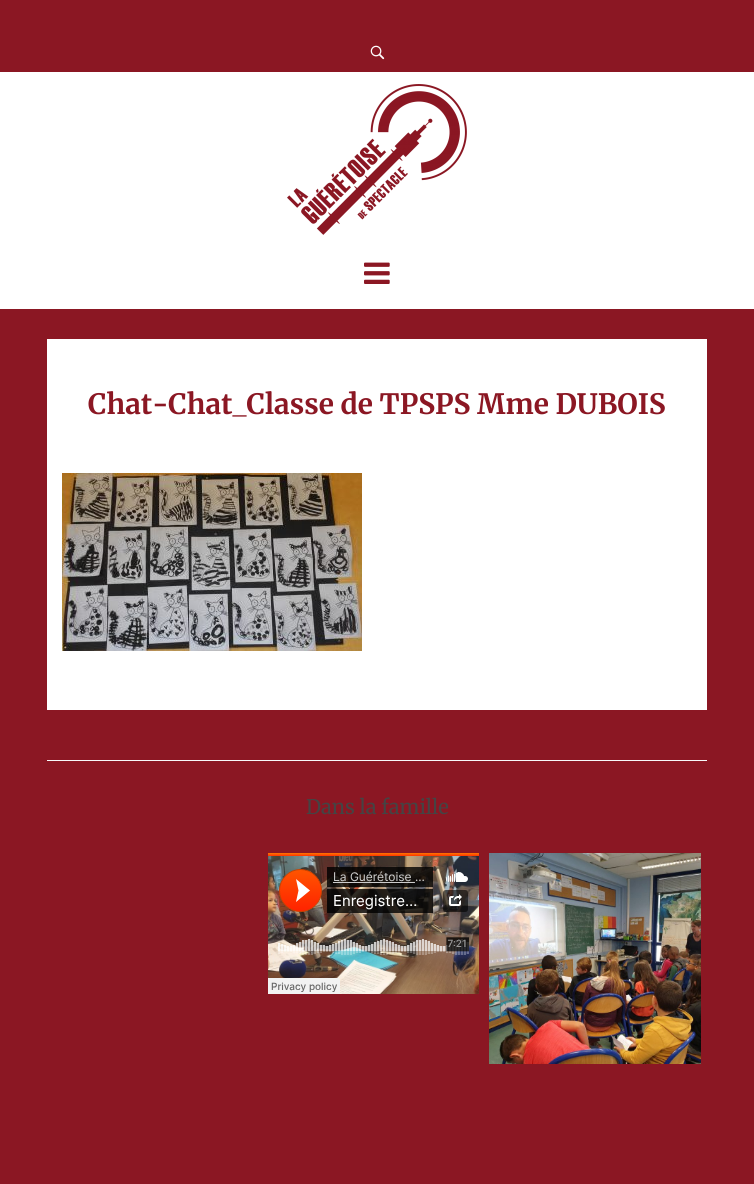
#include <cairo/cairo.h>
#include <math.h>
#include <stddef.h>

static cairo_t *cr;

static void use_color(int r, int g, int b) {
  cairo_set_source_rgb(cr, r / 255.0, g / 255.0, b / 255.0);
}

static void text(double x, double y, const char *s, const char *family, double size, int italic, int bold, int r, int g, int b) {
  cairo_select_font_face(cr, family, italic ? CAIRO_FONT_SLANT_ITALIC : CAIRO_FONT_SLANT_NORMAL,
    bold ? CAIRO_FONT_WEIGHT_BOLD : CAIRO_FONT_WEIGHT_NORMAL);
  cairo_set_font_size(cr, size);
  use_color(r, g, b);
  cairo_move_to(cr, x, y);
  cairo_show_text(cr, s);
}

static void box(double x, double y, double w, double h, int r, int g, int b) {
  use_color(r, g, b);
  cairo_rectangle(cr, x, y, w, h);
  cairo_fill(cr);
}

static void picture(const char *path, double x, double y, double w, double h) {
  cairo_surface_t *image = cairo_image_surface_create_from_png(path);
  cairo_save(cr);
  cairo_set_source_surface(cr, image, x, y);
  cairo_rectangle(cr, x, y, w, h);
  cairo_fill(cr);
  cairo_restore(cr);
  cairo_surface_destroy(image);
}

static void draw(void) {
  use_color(139, 23, 35);
  cairo_paint(cr);
  box(0, 72, 754, 237, 255, 255, 255);
  picture("img_01.png", 370, 45, 15, 15);
  picture("img_02.png", 287, 84, 180, 151);
  picture("img_03.png", 364, 262, 26, 22);
  box(47, 339, 660, 371, 255, 255, 255);
  picture("img_04.png", 62, 473, 300, 178);
  box(47, 760, 660, 1, 248, 249, 250);
  picture("img_05.png", 268, 853, 211, 141);
  picture("img_06.png", 489, 853, 212, 211);
  text(88, 414, "Chat-Chat_Classe de TPSPS Mme DUBOIS", "Merriweather", 28, 0, 1, 139, 23, 35);
  text(306, 814, "Dans la famille", "Merriweather", 20, 0, 0, 68, 68, 68);
}

int main(void) {
  cairo_surface_t *surface = cairo_image_surface_create(CAIRO_FORMAT_RGB24, 754, 1184);
  cr = cairo_create(surface);
  cairo_font_options_t *options = cairo_font_options_create();
  cairo_font_options_set_hint_metrics(options, CAIRO_HINT_METRICS_OFF);
  cairo_font_options_set_hint_style(options, CAIRO_HINT_STYLE_NONE);
  cairo_set_font_options(cr, options);
  cairo_set_miter_limit(cr, 4);
  draw();
  cairo_surface_write_to_png(surface, "out.png");
  cairo_font_options_destroy(options);
  cairo_destroy(cr);
  cairo_surface_destroy(surface);
  return 0;
}
